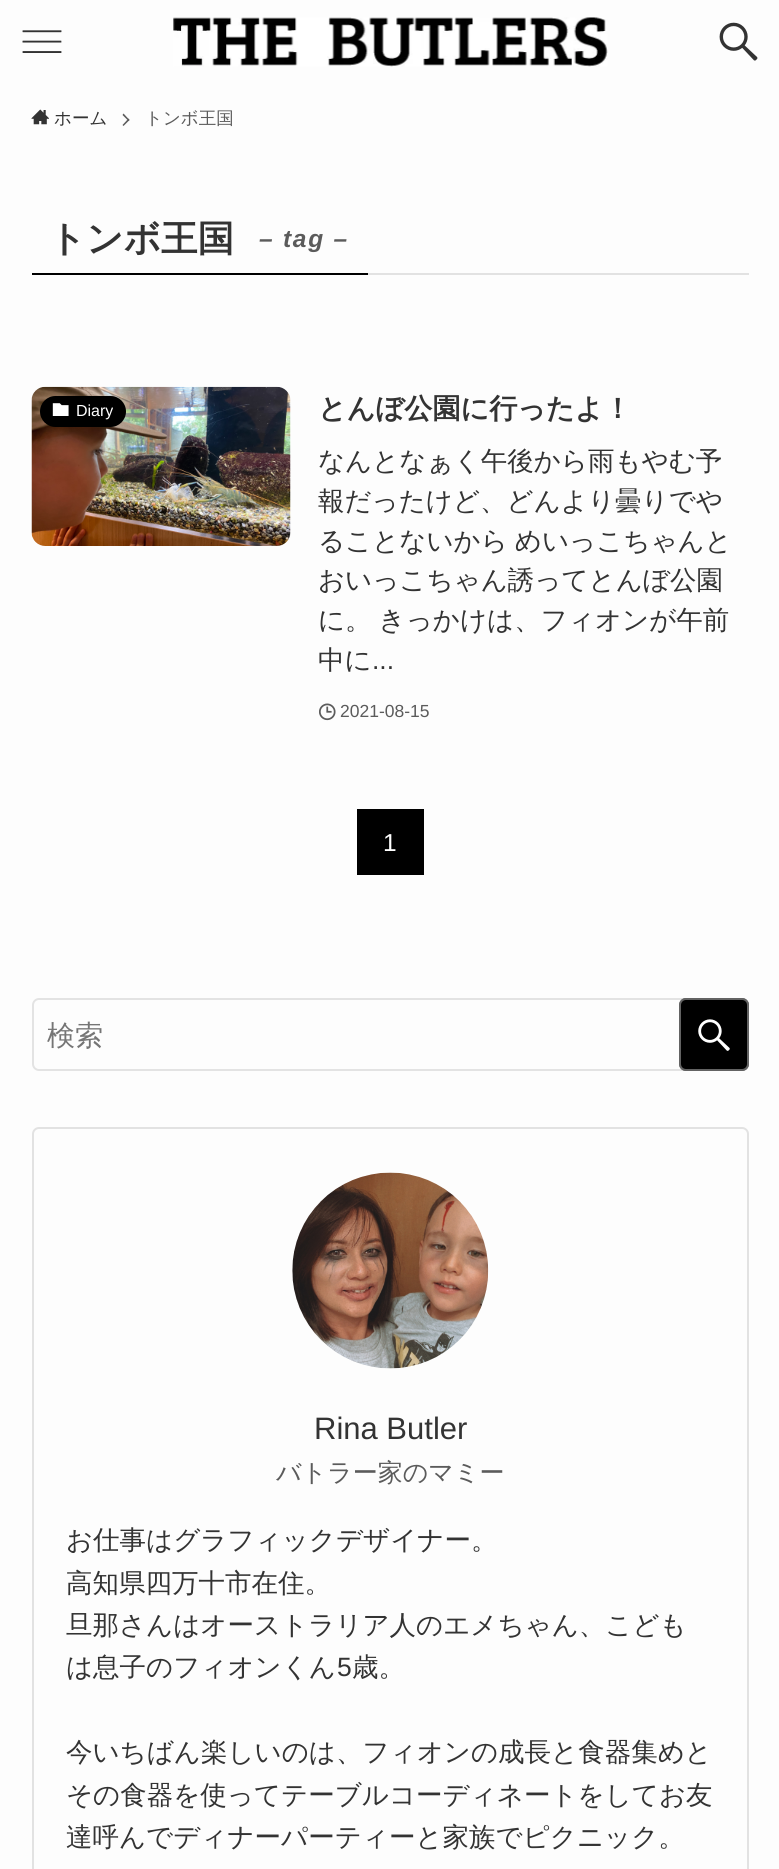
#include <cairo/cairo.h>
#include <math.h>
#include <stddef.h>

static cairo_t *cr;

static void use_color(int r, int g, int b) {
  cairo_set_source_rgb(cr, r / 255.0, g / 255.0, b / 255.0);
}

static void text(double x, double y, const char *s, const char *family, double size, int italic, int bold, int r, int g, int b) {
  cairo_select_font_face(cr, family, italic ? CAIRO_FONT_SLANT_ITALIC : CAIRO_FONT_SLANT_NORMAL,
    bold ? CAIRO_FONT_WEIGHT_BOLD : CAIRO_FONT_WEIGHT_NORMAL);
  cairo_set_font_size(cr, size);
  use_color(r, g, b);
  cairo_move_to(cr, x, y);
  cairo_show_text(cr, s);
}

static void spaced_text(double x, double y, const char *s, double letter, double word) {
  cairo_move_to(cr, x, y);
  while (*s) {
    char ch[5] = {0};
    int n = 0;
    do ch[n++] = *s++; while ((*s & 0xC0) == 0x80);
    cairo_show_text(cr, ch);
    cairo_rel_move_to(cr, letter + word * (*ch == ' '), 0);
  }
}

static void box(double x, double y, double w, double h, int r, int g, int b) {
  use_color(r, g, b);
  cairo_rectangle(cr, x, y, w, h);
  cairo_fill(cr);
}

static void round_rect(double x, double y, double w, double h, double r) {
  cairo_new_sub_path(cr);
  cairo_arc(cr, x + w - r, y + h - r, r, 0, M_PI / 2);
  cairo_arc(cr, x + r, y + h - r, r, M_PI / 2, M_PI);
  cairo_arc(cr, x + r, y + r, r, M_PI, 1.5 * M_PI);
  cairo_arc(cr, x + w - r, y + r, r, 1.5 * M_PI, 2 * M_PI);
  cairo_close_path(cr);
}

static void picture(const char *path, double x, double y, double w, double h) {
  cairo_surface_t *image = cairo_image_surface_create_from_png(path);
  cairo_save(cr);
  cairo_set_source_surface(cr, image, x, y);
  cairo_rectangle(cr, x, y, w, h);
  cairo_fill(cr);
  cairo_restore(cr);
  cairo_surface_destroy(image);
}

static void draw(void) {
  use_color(253, 253, 253);
  cairo_paint(cr);
  picture("img_01.png", 22, 30, 40, 23);
  picture("img_02.png", 173, 17, 435, 50);
  picture("img_03.png", 719, 22, 39, 39);
  picture("img_04.png", 31, 109, 18, 16);
  use_color(91, 91, 91);
  cairo_new_path(cr);
  cairo_move_to(cr, 123.5, 113.5);
  cairo_line_to(cr, 129.5, 120);
  cairo_line_to(cr, 128.5, 121);
  cairo_line_to(cr, 122.5, 115);
  cairo_close_path(cr);
  cairo_fill(cr);
  cairo_new_path(cr);
  cairo_move_to(cr, 128.5, 118.5);
  cairo_line_to(cr, 129.5, 120);
  cairo_line_to(cr, 123.5, 126);
  cairo_line_to(cr, 122.5, 125);
  cairo_close_path(cr);
  cairo_fill(cr);
  box(368, 273, 381, 2, 226, 226, 226);
  box(32, 273, 336, 2, 0, 0, 0);
  picture("img_05.png", 31, 386, 260, 160);
  round_rect(40, 396, 86, 31, 15.5);
  cairo_fill(cr);
  picture("img_06.png", 52, 403, 17, 13);
  picture("img_07.png", 319, 703, 17, 18);
  box(357, 809, 67, 66, 0, 0, 0);
  round_rect(33, 999, 715, 71, 6);
  use_color(227, 227, 227);
  cairo_stroke(cr);
  use_color(0, 0, 0);
  round_rect(679, 998, 70, 73, 7);
  cairo_fill(cr);
  round_rect(680, 999, 68, 71, 6);
  cairo_set_source_rgba(cr, 0.78, 0.78, 0.78, 0.5);
  cairo_stroke(cr);
  picture("img_08.png", 698, 1019, 32, 32);
  round_rect(33, 1128, 715, 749, 6);
  use_color(226, 226, 226);
  cairo_stroke(cr);
  picture("img_09.png", 292, 1172, 197, 197);
  text(54, 124, "ホーム", "WenQuanYi Zen Hei Medium", 17.5, 0, 0, 51, 51, 51);
  text(145, 124, "トンボ王国", "WenQuanYi Zen Hei Medium", 17.5, 0, 0, 91, 91, 91);
  text(49, 251, "トンボ王国", "WenQuanYi Zen Hei", 36.5, 0, 1, 51, 51, 51);
  cairo_select_font_face(cr, "Liberation Sans", CAIRO_FONT_SLANT_ITALIC, CAIRO_FONT_WEIGHT_BOLD);
  cairo_set_font_size(cr, 24.5);
  use_color(91, 91, 91);
  spaced_text(259, 247, "– tag –", 1.75, 0);
  text(76, 416, "Diary", "Liberation Sans", 16, 0, 0, 255, 255, 255);
  text(318, 418, "とんぼ公園に行ったよ！", "WenQuanYi Zen Hei", 28.1, 0, 1, 51, 51, 51);
  text(318, 470, "なんとなぁく午後から雨もやむ予", "WenQuanYi Zen Hei Medium", 26.5, 0, 0, 51, 51, 51);
  text(318, 510, "報だったけど、どんより曇りでや", "WenQuanYi Zen Hei Medium", 26.5, 0, 0, 51, 51, 51);
  spaced_text(318, 550, "ることないから めいっこちゃんと", 0, -1);
  text(318, 589, "おいっこちゃん誘ってとんぼ公園", "WenQuanYi Zen Hei Medium", 26.5, 0, 0, 51, 51, 51);
  spaced_text(318, 629, "に。 きっかけは、フィオンが午前", 0, -1);
  text(318, 669, "中に", "WenQuanYi Zen Hei Medium", 26.5, 0, 0, 51, 51, 51);
  text(372, 669, "...", "Liberation Sans", 26.5, 0, 0, 51, 51, 51);
  text(340, 717, "2021-08-15", "Liberation Sans", 17.5, 0, 0, 91, 91, 91);
  text(383, 851, "1", "Liberation Sans", 24.5, 0, 0, 255, 255, 255);
  text(47, 1045, "検索", "WenQuanYi Zen Hei Medium", 28.1, 0, 0, 117, 117, 117);
  text(314, 1439, "Rina Butler", "Liberation Sans", 31, 0, 0, 51, 51, 51);
  text(276, 1481, "バトラー家のマミー", "WenQuanYi Zen Hei Medium", 25, 0, 0, 91, 91, 91);
  text(66, 1549, "お仕事はグラフィックデザイナー。", "WenQuanYi Zen Hei Medium", 26.5, 0, 0, 51, 51, 51);
  text(66, 1592, "高知県四万十市在住。", "WenQuanYi Zen Hei Medium", 26.5, 0, 0, 51, 51, 51);
  text(66, 1634, "旦那さんはオーストラリア人のエメちゃん、こども", "WenQuanYi Zen Hei Medium", 26.5, 0, 0, 51, 51, 51);
  text(66, 1676, "は息子のフィオンくん", "WenQuanYi Zen Hei Medium", 26.5, 0, 0, 51, 51, 51);
  text(337, 1676, "5", "Liberation Sans", 26.5, 0, 0, 51, 51, 51);
  text(352, 1676, "歳。", "WenQuanYi Zen Hei Medium", 26.5, 0, 0, 51, 51, 51);
  text(66, 1761, "今いちばん楽しいのは、フィオンの成長と食器集めと", "WenQuanYi Zen Hei Medium", 26.5, 0, 0, 51, 51, 51);
  text(66, 1804, "その食器を使ってテーブルコーディネートをしてお友", "WenQuanYi Zen Hei Medium", 26.5, 0, 0, 51, 51, 51);
  text(66, 1846, "達呼んでディナーパーティーと家族でピクニック。", "WenQuanYi Zen Hei Medium", 26.5, 0, 0, 51, 51, 51);
}

int main(void) {
  cairo_surface_t *surface = cairo_image_surface_create(CAIRO_FORMAT_RGB24, 779, 1869);
  cr = cairo_create(surface);
  cairo_font_options_t *options = cairo_font_options_create();
  cairo_font_options_set_hint_metrics(options, CAIRO_HINT_METRICS_OFF);
  cairo_font_options_set_hint_style(options, CAIRO_HINT_STYLE_NONE);
  cairo_set_font_options(cr, options);
  cairo_set_miter_limit(cr, 4);
  draw();
  cairo_surface_write_to_png(surface, "out.png");
  cairo_font_options_destroy(options);
  cairo_destroy(cr);
  cairo_surface_destroy(surface);
  return 0;
}
